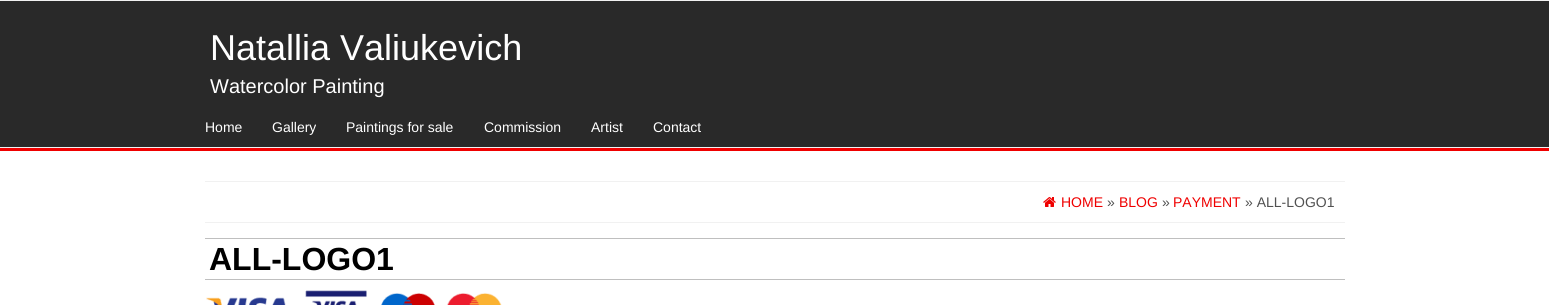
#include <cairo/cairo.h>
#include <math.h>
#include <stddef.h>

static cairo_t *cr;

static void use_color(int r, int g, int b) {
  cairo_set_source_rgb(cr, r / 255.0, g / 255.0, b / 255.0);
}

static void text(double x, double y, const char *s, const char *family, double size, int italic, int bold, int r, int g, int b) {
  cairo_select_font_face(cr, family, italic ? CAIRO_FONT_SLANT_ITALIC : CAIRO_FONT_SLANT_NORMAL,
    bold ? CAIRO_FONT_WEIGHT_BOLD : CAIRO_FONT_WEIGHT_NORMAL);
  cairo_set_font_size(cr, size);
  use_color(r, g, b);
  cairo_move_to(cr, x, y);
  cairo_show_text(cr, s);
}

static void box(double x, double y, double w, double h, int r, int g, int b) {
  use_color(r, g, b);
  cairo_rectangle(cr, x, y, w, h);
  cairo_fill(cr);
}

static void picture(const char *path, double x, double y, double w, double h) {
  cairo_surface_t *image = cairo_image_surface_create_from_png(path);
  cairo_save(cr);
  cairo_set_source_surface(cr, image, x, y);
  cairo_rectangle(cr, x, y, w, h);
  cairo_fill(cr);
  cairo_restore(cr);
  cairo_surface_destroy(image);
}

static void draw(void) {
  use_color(255, 255, 255);
  cairo_paint(cr);
  box(0, 148, 1549, 3, 239, 0, 0);
  box(0, 0, 1549, 1, 241, 241, 241);
  box(0, 1, 1549, 146, 41, 41, 41);
  box(0, 147, 1549, 1, 241, 241, 241);
  box(205, 181, 1140, 1, 241, 241, 241);
  box(205, 222, 1140, 1, 241, 241, 241);
  picture("img_01.png", 1043, 197, 13, 10);
  box(205, 238, 1140, 1, 191, 191, 191);
  box(205, 279, 1140, 1, 191, 191, 191);
  picture("img_02.png", 206, 290, 296, 15);
  text(210, 60, "Natallia Valiukevich", "Liberation Sans", 36, 0, 0, 255, 255, 255);
  text(210, 93, "Watercolor Painting", "Liberation Sans", 20, 0, 0, 255, 255, 255);
  text(205, 132, "Home", "Liberation Sans", 14, 0, 0, 255, 255, 255);
  text(272, 132, "Gallery", "Liberation Sans", 14, 0, 0, 255, 255, 255);
  text(346, 132, "Paintings for sale", "Liberation Sans", 14, 0, 0, 255, 255, 255);
  text(484, 132, "Commission", "Liberation Sans", 14, 0, 0, 255, 255, 255);
  text(591, 132, "Artist", "Liberation Sans", 14, 0, 0, 255, 255, 255);
  text(653, 132, "Contact", "Liberation Sans", 14, 0, 0, 255, 255, 255);
  text(1061, 207, "HOME", "Liberation Sans", 14, 0, 0, 239, 0, 0);
  text(1107, 207, "»", "Liberation Sans", 14, 0, 0, 81, 81, 81);
  text(1119, 207, "BLOG", "Liberation Sans", 14, 0, 0, 239, 0, 0);
  text(1162, 207, "»", "Liberation Sans", 14, 0, 0, 81, 81, 81);
  text(1173, 207, "PAYMENT", "Liberation Sans", 14, 0, 0, 239, 0, 0);
  text(1245, 207, "» ALL-LOGO1", "Liberation Sans", 14, 0, 0, 81, 81, 81);
  text(209, 270, "ALL-LOGO1", "Liberation Sans", 32, 0, 1, 0, 0, 0);
}

int main(void) {
  cairo_surface_t *surface = cairo_image_surface_create(CAIRO_FORMAT_RGB24, 1549, 305);
  cr = cairo_create(surface);
  cairo_font_options_t *options = cairo_font_options_create();
  cairo_font_options_set_hint_metrics(options, CAIRO_HINT_METRICS_OFF);
  cairo_font_options_set_hint_style(options, CAIRO_HINT_STYLE_NONE);
  cairo_set_font_options(cr, options);
  cairo_set_miter_limit(cr, 4);
  draw();
  cairo_surface_write_to_png(surface, "out.png");
  cairo_font_options_destroy(options);
  cairo_destroy(cr);
  cairo_surface_destroy(surface);
  return 0;
}
